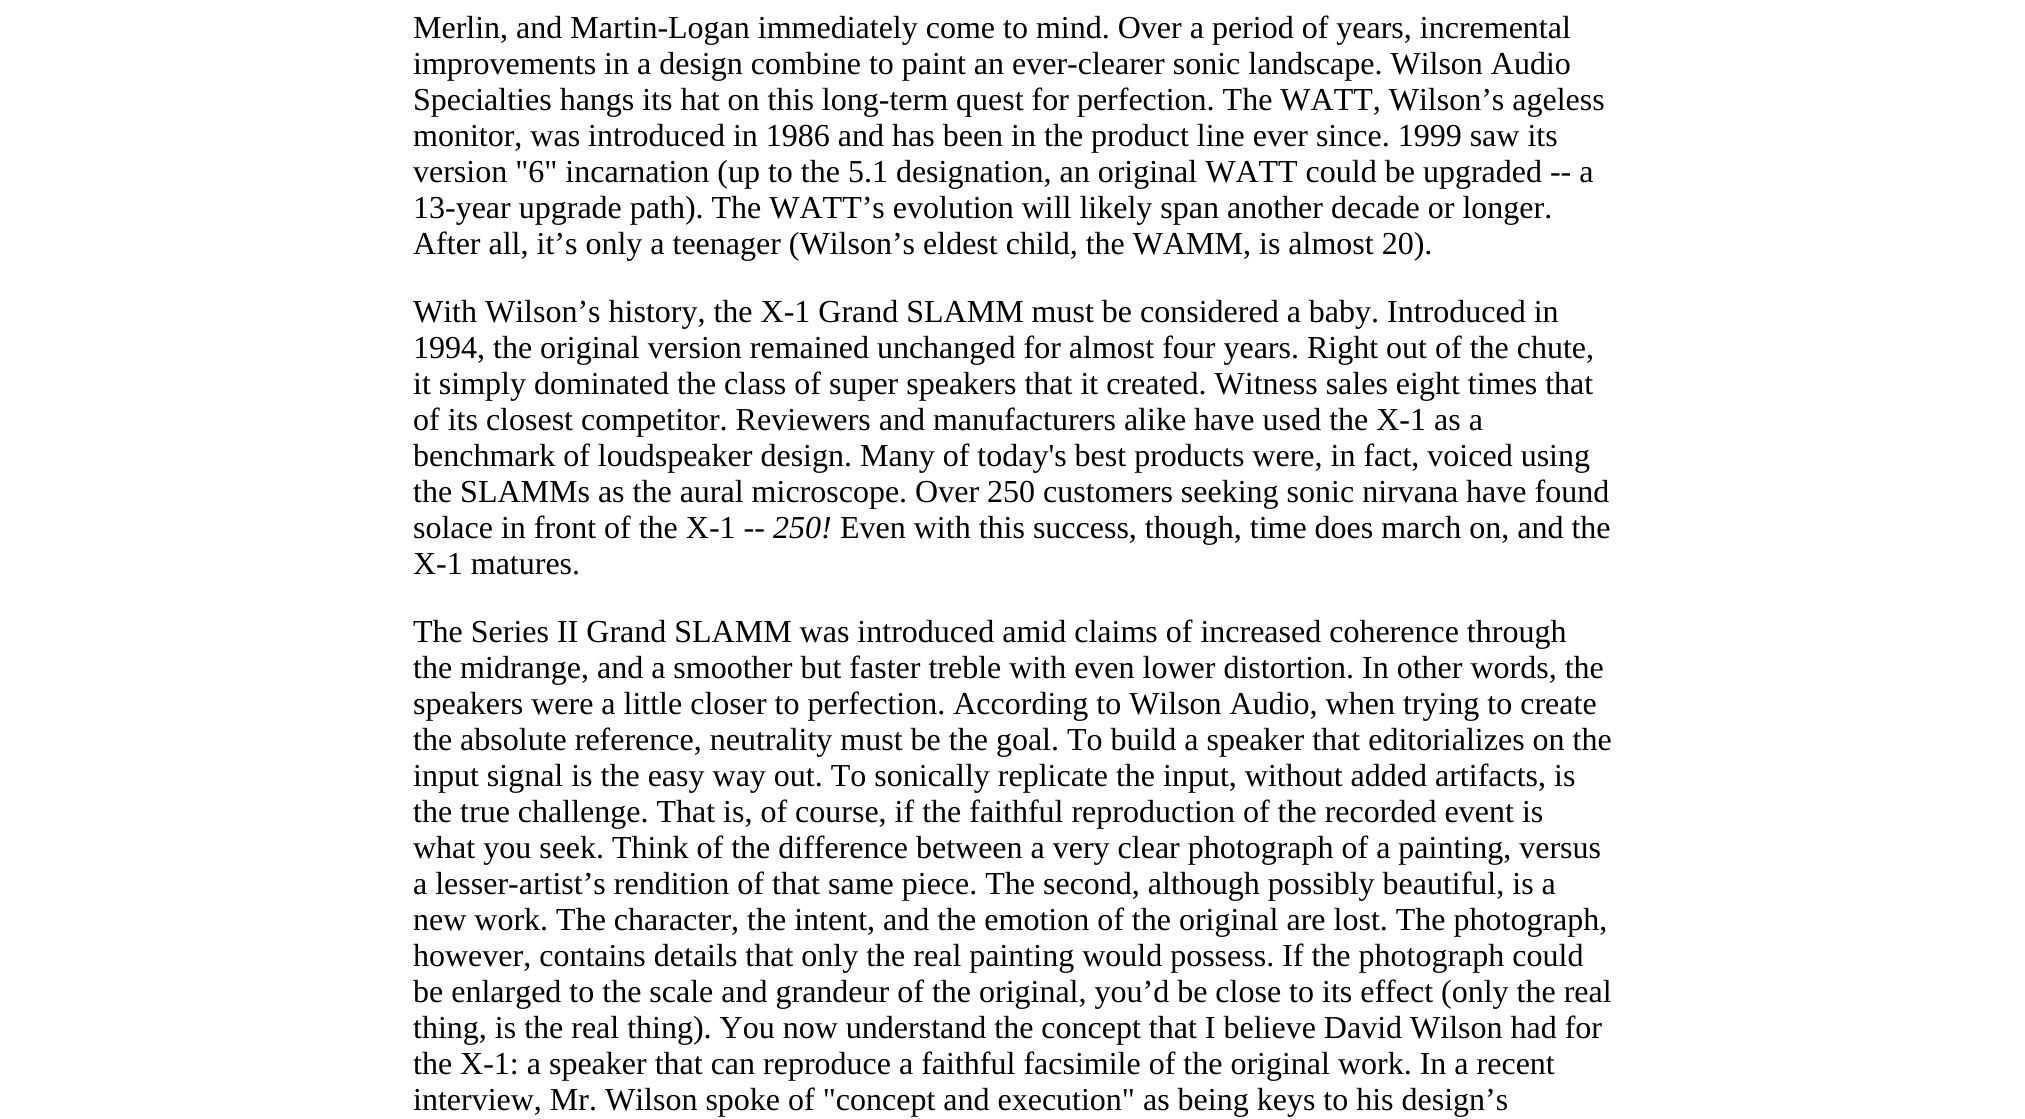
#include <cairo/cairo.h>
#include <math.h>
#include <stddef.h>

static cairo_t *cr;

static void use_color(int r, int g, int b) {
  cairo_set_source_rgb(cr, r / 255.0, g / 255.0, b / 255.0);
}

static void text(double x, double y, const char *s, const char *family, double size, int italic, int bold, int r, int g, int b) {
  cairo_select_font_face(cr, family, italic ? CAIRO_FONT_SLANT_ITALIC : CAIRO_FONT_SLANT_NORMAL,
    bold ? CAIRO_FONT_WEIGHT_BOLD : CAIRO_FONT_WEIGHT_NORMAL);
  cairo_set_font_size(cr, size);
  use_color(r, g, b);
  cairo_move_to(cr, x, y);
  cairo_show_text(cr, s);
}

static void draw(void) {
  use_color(255, 255, 255);
  cairo_paint(cr);
  text(413, 38, "Merlin, and Martin-Logan immediately come to mind. Over a period of years, incremental", "Liberation Serif", 32, 0, 0, 0, 0, 0);
  text(413, 74, "improvements in a design combine to paint an ever-clearer sonic landscape. Wilson Audio", "Liberation Serif", 32, 0, 0, 0, 0, 0);
  text(413, 110, "Specialties hangs its hat on this long-term quest for perfection. The WATT, Wilson’s ageless", "Liberation Serif", 32, 0, 0, 0, 0, 0);
  text(413, 146, "monitor, was introduced in 1986 and has been in the product line ever since. 1999 saw its", "Liberation Serif", 32, 0, 0, 0, 0, 0);
  text(413, 182, "version \"6\" incarnation (up to the 5.1 designation, an original WATT could be upgraded -- a", "Liberation Serif", 32, 0, 0, 0, 0, 0);
  text(413, 218, "13-year upgrade path). The WATT’s evolution will likely span another decade or longer.", "Liberation Serif", 32, 0, 0, 0, 0, 0);
  text(413, 254, "After all, it’s only a teenager (Wilson’s eldest child, the WAMM, is almost 20).", "Liberation Serif", 32, 0, 0, 0, 0, 0);
  text(413, 322, "With Wilson’s history, the X-1 Grand SLAMM must be considered a baby. Introduced in", "Liberation Serif", 32, 0, 0, 0, 0, 0);
  text(413, 358, "1994, the original version remained unchanged for almost four years. Right out of the chute,", "Liberation Serif", 32, 0, 0, 0, 0, 0);
  text(413, 394, "it simply dominated the class of super speakers that it created. Witness sales eight times that", "Liberation Serif", 32, 0, 0, 0, 0, 0);
  text(413, 430, "of its closest competitor. Reviewers and manufacturers alike have used the X-1 as a", "Liberation Serif", 32, 0, 0, 0, 0, 0);
  text(413, 466, "benchmark of loudspeaker design. Many of today's best products were, in fact, voiced using", "Liberation Serif", 32, 0, 0, 0, 0, 0);
  text(413, 502, "the SLAMMs as the aural microscope. Over 250 customers seeking sonic nirvana have found", "Liberation Serif", 32, 0, 0, 0, 0, 0);
  text(413, 538, "solace in front of the X-1 --", "Liberation Serif", 32, 0, 0, 0, 0, 0);
  text(773, 538, "250!", "Liberation Serif", 32, 1, 0, 0, 0, 0);
  text(840, 538, "Even with this success, though, time does march on, and the", "Liberation Serif", 32, 0, 0, 0, 0, 0);
  text(413, 574, "X-1 matures.", "Liberation Serif", 32, 0, 0, 0, 0, 0);
  text(413, 642, "The Series II Grand SLAMM was introduced amid claims of increased coherence through", "Liberation Serif", 32, 0, 0, 0, 0, 0);
  text(413, 678, "the midrange, and a smoother but faster treble with even lower distortion. In other words, the", "Liberation Serif", 32, 0, 0, 0, 0, 0);
  text(413, 714, "speakers were a little closer to perfection. According to Wilson Audio, when trying to create", "Liberation Serif", 32, 0, 0, 0, 0, 0);
  text(413, 750, "the absolute reference, neutrality must be the goal. To build a speaker that editorializes on the", "Liberation Serif", 32, 0, 0, 0, 0, 0);
  text(413, 786, "input signal is the easy way out. To sonically replicate the input, without added artifacts, is", "Liberation Serif", 32, 0, 0, 0, 0, 0);
  text(413, 822, "the true challenge. That is, of course, if the faithful reproduction of the recorded event is", "Liberation Serif", 32, 0, 0, 0, 0, 0);
  text(413, 858, "what you seek. Think of the difference between a very clear photograph of a painting, versus", "Liberation Serif", 32, 0, 0, 0, 0, 0);
  text(413, 894, "a lesser-artist’s rendition of that same piece. The second, although possibly beautiful, is a", "Liberation Serif", 32, 0, 0, 0, 0, 0);
  text(413, 930, "new work. The character, the intent, and the emotion of the original are lost. The photograph,", "Liberation Serif", 32, 0, 0, 0, 0, 0);
  text(413, 966, "however, contains details that only the real painting would possess. If the photograph could", "Liberation Serif", 32, 0, 0, 0, 0, 0);
  text(413, 1002, "be enlarged to the scale and grandeur of the original, you’d be close to its effect (only the real", "Liberation Serif", 32, 0, 0, 0, 0, 0);
  text(413, 1038, "thing, is the real thing). You now understand the concept that I believe David Wilson had for", "Liberation Serif", 32, 0, 0, 0, 0, 0);
  text(413, 1074, "the X-1: a speaker that can reproduce a faithful facsimile of the original work. In a recent", "Liberation Serif", 32, 0, 0, 0, 0, 0);
  text(413, 1110, "interview, Mr. Wilson spoke of \"concept and execution\" as being keys to his design’s", "Liberation Serif", 32, 0, 0, 0, 0, 0);
}

int main(void) {
  cairo_surface_t *surface = cairo_image_surface_create(CAIRO_FORMAT_RGB24, 2025, 1119);
  cr = cairo_create(surface);
  cairo_font_options_t *options = cairo_font_options_create();
  cairo_font_options_set_hint_metrics(options, CAIRO_HINT_METRICS_OFF);
  cairo_font_options_set_hint_style(options, CAIRO_HINT_STYLE_NONE);
  cairo_set_font_options(cr, options);
  cairo_set_miter_limit(cr, 4);
  draw();
  cairo_surface_write_to_png(surface, "out.png");
  cairo_font_options_destroy(options);
  cairo_destroy(cr);
  cairo_surface_destroy(surface);
  return 0;
}
